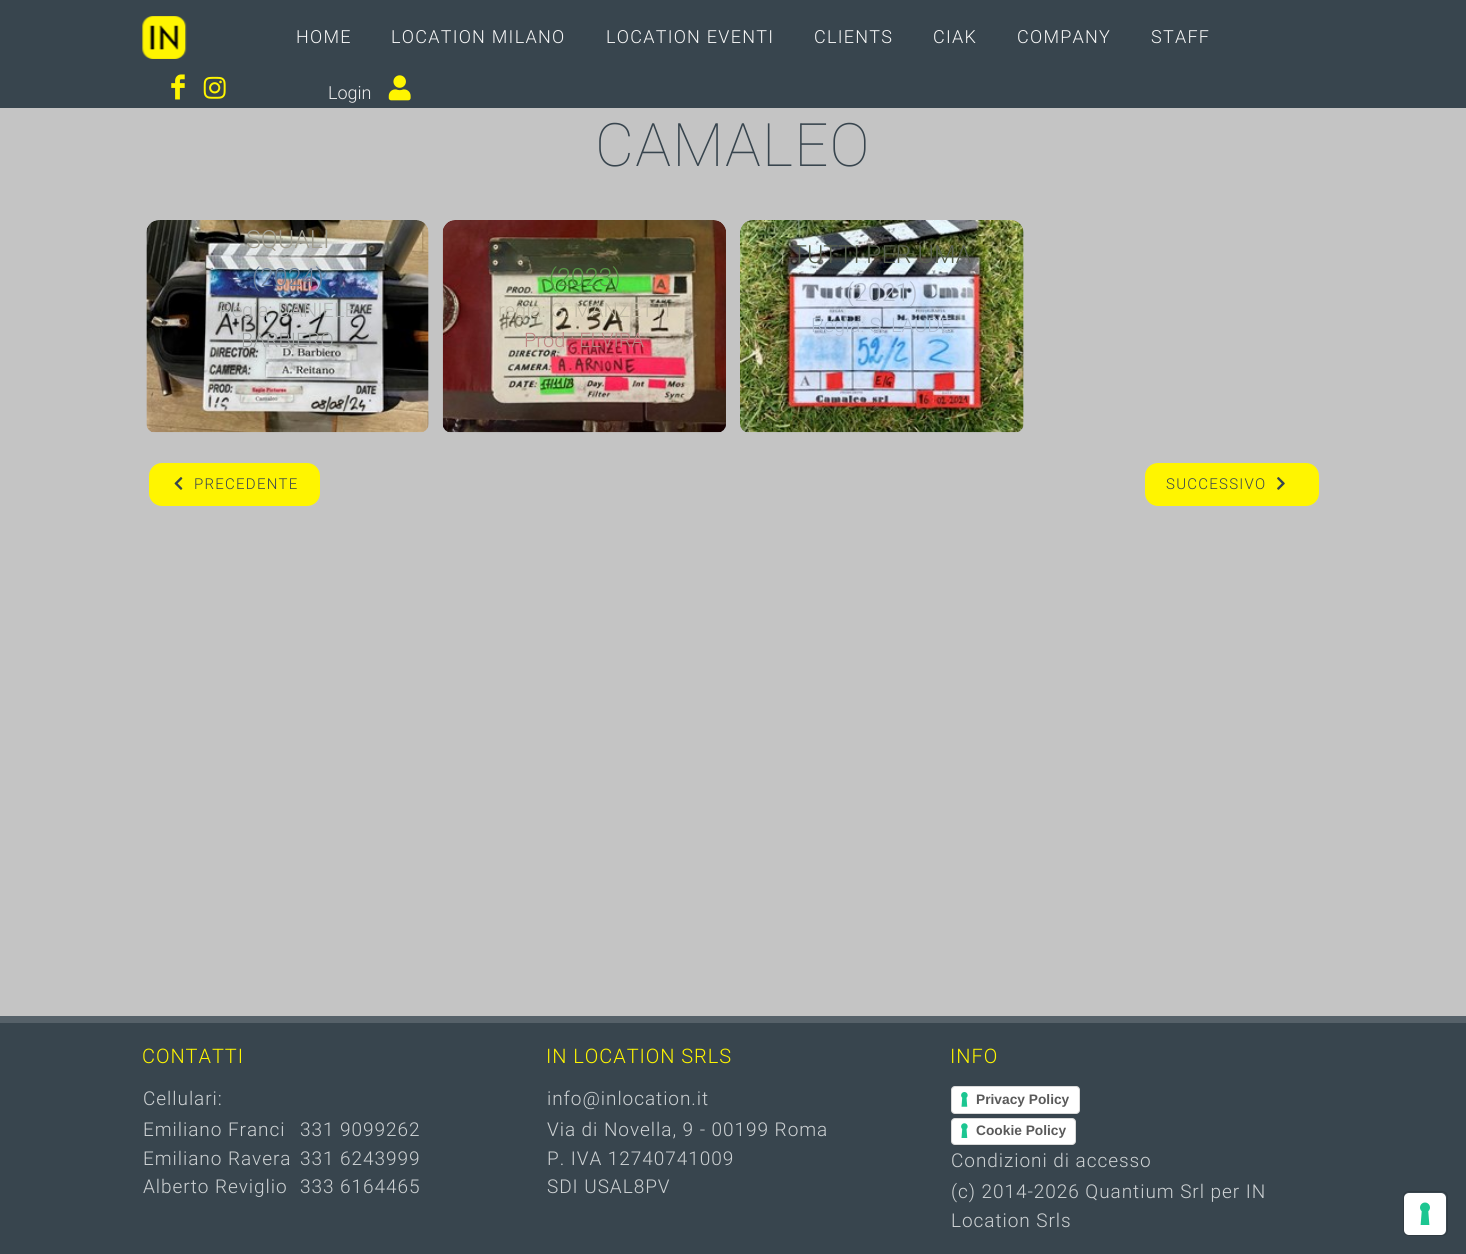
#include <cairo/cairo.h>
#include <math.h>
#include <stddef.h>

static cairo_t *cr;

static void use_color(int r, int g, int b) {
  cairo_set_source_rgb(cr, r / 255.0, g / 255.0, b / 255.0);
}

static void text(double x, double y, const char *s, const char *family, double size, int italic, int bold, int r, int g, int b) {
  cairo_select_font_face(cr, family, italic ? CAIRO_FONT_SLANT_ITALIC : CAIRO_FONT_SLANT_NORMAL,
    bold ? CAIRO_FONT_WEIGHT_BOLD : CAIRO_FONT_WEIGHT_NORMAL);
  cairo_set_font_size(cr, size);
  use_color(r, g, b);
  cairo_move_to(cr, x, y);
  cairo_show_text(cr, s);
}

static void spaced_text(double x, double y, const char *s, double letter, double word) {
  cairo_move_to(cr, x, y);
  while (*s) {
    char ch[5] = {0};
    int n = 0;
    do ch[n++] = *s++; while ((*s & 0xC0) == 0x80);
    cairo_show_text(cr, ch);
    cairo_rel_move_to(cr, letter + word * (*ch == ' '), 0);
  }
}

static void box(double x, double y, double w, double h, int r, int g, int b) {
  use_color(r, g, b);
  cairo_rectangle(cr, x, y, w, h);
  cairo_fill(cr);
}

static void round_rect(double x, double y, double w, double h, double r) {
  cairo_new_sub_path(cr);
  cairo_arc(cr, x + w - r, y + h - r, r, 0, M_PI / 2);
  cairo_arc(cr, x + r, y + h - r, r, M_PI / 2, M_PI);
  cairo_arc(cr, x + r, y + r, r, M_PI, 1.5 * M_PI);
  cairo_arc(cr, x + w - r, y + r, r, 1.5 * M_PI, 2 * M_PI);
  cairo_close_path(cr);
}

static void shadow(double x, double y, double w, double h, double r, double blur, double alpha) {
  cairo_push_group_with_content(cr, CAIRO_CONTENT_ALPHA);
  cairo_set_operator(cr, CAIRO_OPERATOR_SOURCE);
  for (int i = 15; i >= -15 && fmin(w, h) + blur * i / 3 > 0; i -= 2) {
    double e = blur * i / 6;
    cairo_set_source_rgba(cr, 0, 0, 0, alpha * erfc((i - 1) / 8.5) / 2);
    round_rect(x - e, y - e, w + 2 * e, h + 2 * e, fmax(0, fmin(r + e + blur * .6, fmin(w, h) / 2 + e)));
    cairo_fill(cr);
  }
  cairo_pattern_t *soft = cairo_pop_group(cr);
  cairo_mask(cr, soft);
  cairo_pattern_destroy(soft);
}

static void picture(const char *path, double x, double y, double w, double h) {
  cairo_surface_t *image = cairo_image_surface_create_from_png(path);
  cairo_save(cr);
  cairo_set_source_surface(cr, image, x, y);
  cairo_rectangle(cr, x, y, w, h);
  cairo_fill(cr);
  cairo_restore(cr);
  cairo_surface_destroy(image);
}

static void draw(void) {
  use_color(196, 196, 196);
  cairo_paint(cr);
  box(0, 0, 1466, 108, 56, 69, 78);
  picture("img_01.png", 142, 16, 45, 43);
  picture("img_02.png", 171, 74, 14, 26);
  picture("img_03.png", 203, 76, 23, 23);
  picture("img_04.png", 388, 75, 23, 26);
  picture("img_05.png", 146, 220, 283, 213);
  picture("img_06.png", 442, 220, 284, 213);
  picture("img_07.png", 740, 220, 284, 213);
  use_color(255, 245, 0);
  round_rect(149, 463, 171, 43, 13);
  cairo_fill(cr);
  picture("img_08.png", 174, 477, 9, 13);
  round_rect(1145, 463, 174, 43, 13);
  cairo_fill(cr);
  picture("img_09.png", 1277, 477, 8, 13);
  box(0, 1023, 1466, 231, 56, 69, 78);
  box(0, 1016, 1466, 7, 86, 97, 105);
  use_color(0, 0, 0);
  shadow(953, 1089, 126, 25, 2.5, 0.5, 0.15);
  use_color(255, 255, 255);
  round_rect(951, 1086, 129, 28, 4);
  cairo_fill(cr);
  picture("img_10.png", 961, 1092, 7, 15);
  round_rect(951.5, 1086.5, 128, 27, 3.5);
  cairo_set_source_rgba(cr, 0, 0, 0, 0.15);
  cairo_set_line_width(cr, 1);
  cairo_stroke(cr);
  use_color(0, 0, 0);
  shadow(953, 1120, 122, 25, 2.5, 0.5, 0.15);
  use_color(255, 255, 255);
  round_rect(951, 1118, 125, 27, 4);
  cairo_fill(cr);
  picture("img_11.png", 961, 1123, 7, 15);
  round_rect(951.5, 1118.5, 124, 26, 3.5);
  cairo_set_source_rgba(cr, 0, 0, 0, 0.15);
  cairo_stroke(cr);
  round_rect(1403.5, 1191.5, 44, 44, 5.5);
  use_color(48, 59, 66);
  cairo_stroke(cr);
  use_color(255, 255, 255);
  round_rect(1404, 1193, 42, 42, 5);
  cairo_fill(cr);
  picture("img_12.png", 1420, 1202, 10, 23);
  cairo_select_font_face(cr, "Roboto Light", CAIRO_FONT_SLANT_NORMAL, CAIRO_FONT_WEIGHT_NORMAL);
  cairo_set_font_size(cr, 18);
  use_color(247, 247, 247);
  spaced_text(296, 43, "HOME", 1.25, 0);
  spaced_text(391, 43, "LOCATION MILANO", 1.25, 0);
  spaced_text(606, 43, "LOCATION EVENTI", 1.25, 0);
  spaced_text(814, 43, "CLIENTS", 1.25, 0);
  spaced_text(933, 43, "CIAK", 1.25, 0);
  spaced_text(1017, 43, "COMPANY", 1.25, 0);
  spaced_text(1151, 43, "STAFF", 1.25, 0);
  text(328, 99, "Login", "Roboto Light", 18, 0, 0, 238, 238, 238);
  cairo_select_font_face(cr, "Roboto Thin", CAIRO_FONT_SLANT_NORMAL, CAIRO_FONT_WEIGHT_NORMAL);
  cairo_set_font_size(cr, 60);
  use_color(56, 69, 78);
  spaced_text(595, 166, "CAMALEO", 1.25, 0);
  text(246, 248, "SQUALI", "Roboto Light", 25, 0, 0, 159, 156, 142);
  text(252, 286, "(2024)", "Roboto Light", 25, 0, 0, 109, 127, 151);
  text(219, 317, "Regia: DANIELE", "Roboto Light", 20, 0, 0, 175, 178, 178);
  text(241, 347, "BARBIERO", "Roboto Light", 20, 0, 0, 160, 163, 163);
  text(549, 286, "(2023)", "Roboto Light", 25, 0, 0, 85, 148, 69);
  text(498, 317, "regia: G. MANZETTI", "Roboto Light", 20, 0, 0, 190, 183, 163);
  text(524, 347, "Prod.: ELVIRA", "Roboto Light", 20, 0, 0, 189, 135, 132);
  text(792, 263, "TUTTI PER UMA", "Roboto Light", 25, 0, 0, 89, 97, 81);
  text(846, 301, "(2021)", "Roboto Light", 25, 0, 0, 181, 190, 207);
  text(811, 332, "Regia: S. LAUDE", "Roboto Light", 20, 0, 0, 176, 192, 214);
  cairo_set_font_size(cr, 15);
  use_color(56, 69, 78);
  spaced_text(194, 489, "PRECEDENTE", 1.25, 0);
  spaced_text(1166, 489, "SUCCESSIVO", 1.25, 0);
  cairo_set_font_size(cr, 20);
  use_color(255, 245, 0);
  spaced_text(142, 1063, "CONTATTI", 0.95, 0);
  cairo_set_font_size(cr, 19);
  use_color(205, 209, 211);
  spaced_text(143, 1105, "Cellulari:", 0.95, 0);
  spaced_text(143, 1136, "Emiliano Franci", 0.95, 0);
  spaced_text(143, 1165, "Emiliano Ravera", 0.95, 0);
  spaced_text(143, 1193, "Alberto Reviglio", 0.95, 0);
  spaced_text(300, 1136, "331 9099262", 0.95, 0);
  spaced_text(300, 1165, "331 6243999", 0.95, 0);
  spaced_text(300, 1193, "333 6164465", 0.95, 0);
  cairo_set_font_size(cr, 20);
  use_color(255, 245, 0);
  spaced_text(546, 1063, "IN LOCATION SRLS", 0.95, 0);
  cairo_set_font_size(cr, 19);
  use_color(205, 209, 211);
  spaced_text(547, 1105, "info@inlocation.it", 0.95, 0);
  spaced_text(547, 1136, "Via di Novella, 9 - 00199 Roma", 0.95, 0);
  spaced_text(547, 1165, "P. IVA 12740741009", 0.95, 0);
  spaced_text(547, 1193, "SDI USAL8PV", 0.95, 0);
  cairo_set_font_size(cr, 20);
  use_color(255, 245, 0);
  spaced_text(950, 1063, "INFO", 0.95, 0);
  text(976, 1104, "Privacy Policy", "Liberation Sans", 13.75, 0, 1, 89, 89, 89);
  text(976, 1135, "Cookie Policy", "Liberation Sans", 13.75, 0, 1, 89, 89, 89);
  cairo_select_font_face(cr, "Roboto Light", CAIRO_FONT_SLANT_NORMAL, CAIRO_FONT_WEIGHT_NORMAL);
  cairo_set_font_size(cr, 19);
  use_color(205, 209, 211);
  spaced_text(951, 1167, "Condizioni di accesso", 0.95, 0);
  spaced_text(951, 1198, "(c) 2014-2026 Quantium Srl per IN", 0.95, 0);
  spaced_text(951, 1227, "Location Srls", 0.95, 0);
}

int main(void) {
  cairo_surface_t *surface = cairo_image_surface_create(CAIRO_FORMAT_RGB24, 1466, 1254);
  cr = cairo_create(surface);
  cairo_font_options_t *options = cairo_font_options_create();
  cairo_font_options_set_hint_metrics(options, CAIRO_HINT_METRICS_OFF);
  cairo_font_options_set_hint_style(options, CAIRO_HINT_STYLE_NONE);
  cairo_set_font_options(cr, options);
  cairo_set_miter_limit(cr, 4);
  draw();
  cairo_surface_write_to_png(surface, "out.png");
  cairo_font_options_destroy(options);
  cairo_destroy(cr);
  cairo_surface_destroy(surface);
  return 0;
}
